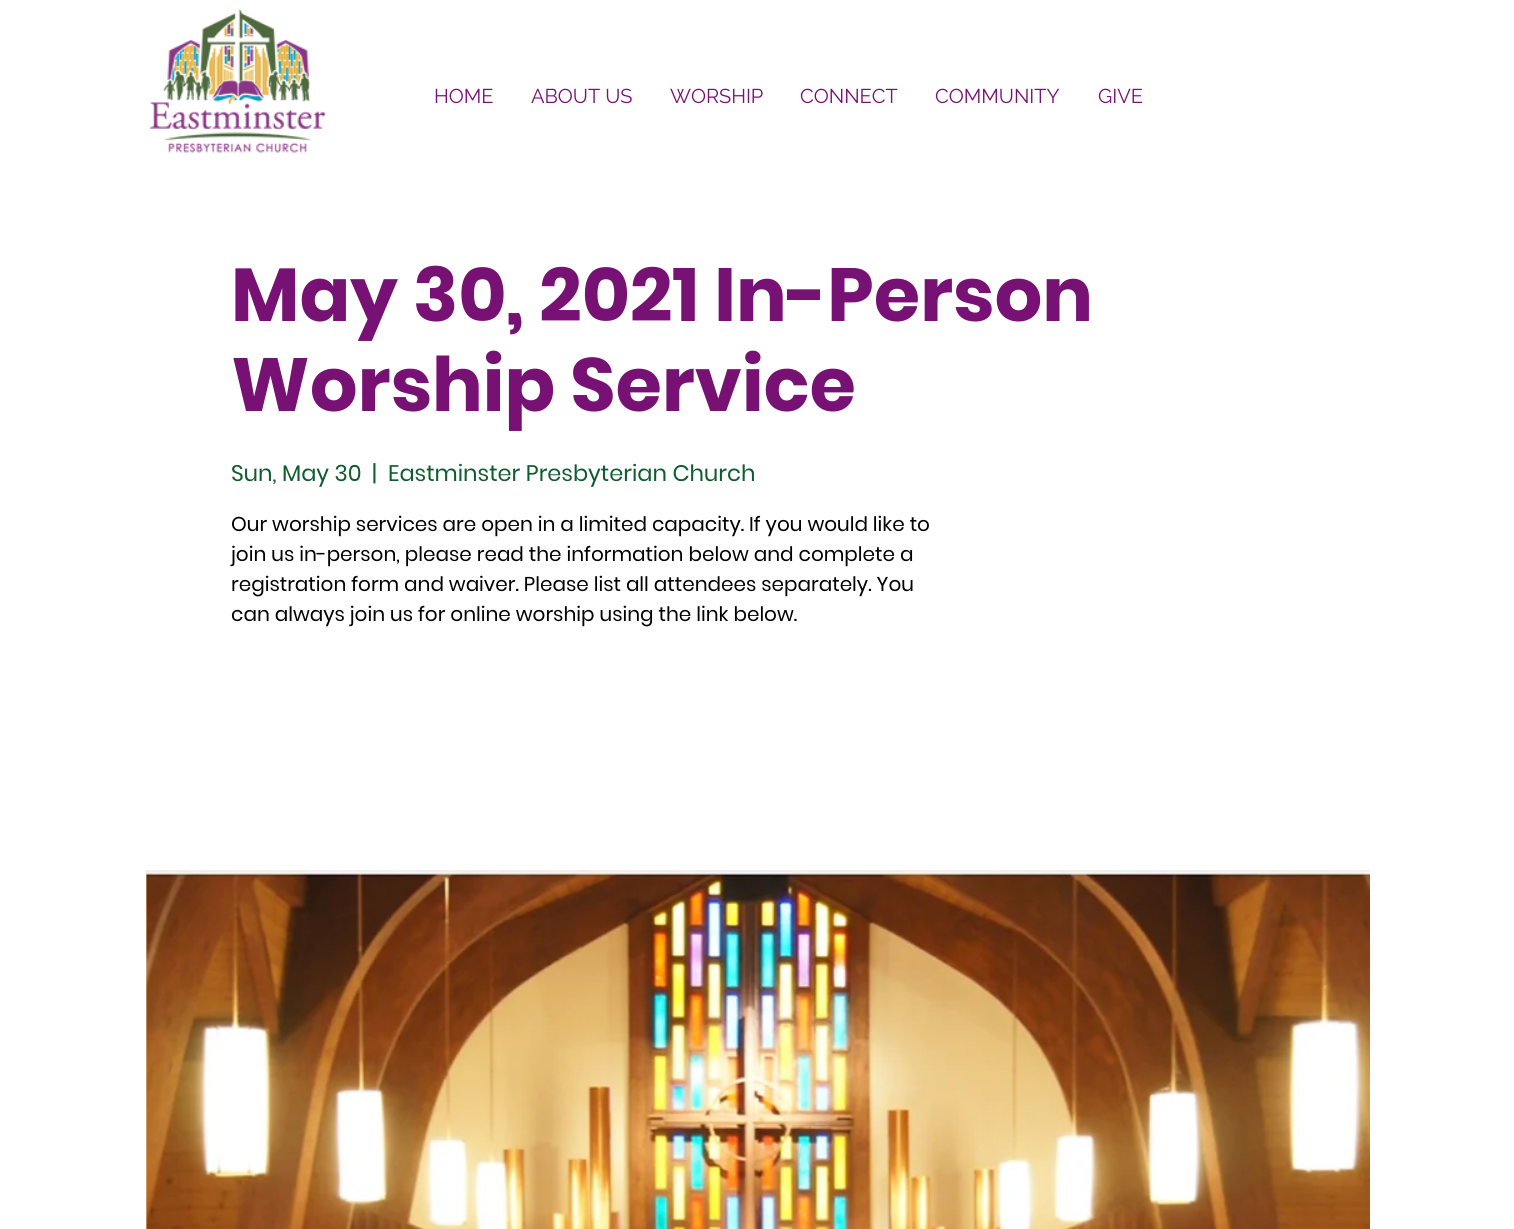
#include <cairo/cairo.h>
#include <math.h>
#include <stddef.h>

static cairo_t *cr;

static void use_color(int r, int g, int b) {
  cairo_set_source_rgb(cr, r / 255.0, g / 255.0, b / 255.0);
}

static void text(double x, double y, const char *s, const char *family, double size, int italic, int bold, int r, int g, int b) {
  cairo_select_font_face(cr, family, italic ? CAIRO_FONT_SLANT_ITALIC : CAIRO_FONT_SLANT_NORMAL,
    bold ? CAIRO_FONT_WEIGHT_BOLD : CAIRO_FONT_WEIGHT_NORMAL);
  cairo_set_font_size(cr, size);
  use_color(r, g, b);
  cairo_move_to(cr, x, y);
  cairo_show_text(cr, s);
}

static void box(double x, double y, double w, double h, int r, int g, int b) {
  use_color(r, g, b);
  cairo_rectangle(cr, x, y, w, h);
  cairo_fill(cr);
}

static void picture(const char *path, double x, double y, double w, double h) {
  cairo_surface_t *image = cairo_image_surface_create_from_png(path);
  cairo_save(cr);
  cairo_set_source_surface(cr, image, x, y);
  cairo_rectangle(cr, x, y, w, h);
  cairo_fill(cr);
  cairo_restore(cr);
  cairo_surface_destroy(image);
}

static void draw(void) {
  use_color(255, 255, 255);
  cairo_paint(cr);
  picture("img_01.png", 149, 8, 177, 145);
  box(146, 870, 1, 359, 249, 217, 171);
  picture("img_02.png", 146, 870, 1224, 359);
  text(434, 103, "HOME", "Raleway", 20, 0, 0, 120, 17, 116);
  text(531, 103, "ABOUT US", "Raleway", 20, 0, 0, 120, 17, 116);
  text(670, 103, "WORSHIP", "Raleway", 20, 0, 0, 120, 17, 116);
  text(800, 103, "CONNECT", "Raleway", 20, 0, 0, 120, 17, 116);
  text(935, 103, "COMMUNITY", "Raleway", 20, 0, 0, 120, 17, 116);
  text(1098, 103, "GIVE", "Raleway", 20, 0, 0, 120, 17, 116);
  text(231, 321, "May 30, 2021 In-Person", "Poppins", 75, 0, 1, 120, 17, 116);
  text(231, 411, "Worship Service", "Poppins", 75, 0, 1, 120, 17, 116);
  text(231, 481, "Sun, May 30", "Poppins", 22.5, 0, 0, 15, 92, 46);
  text(372, 481, "|", "Poppins", 22.5, 0, 0, 15, 92, 46);
  text(388, 481, "Eastminster Presbyterian Church", "Poppins", 22.5, 0, 0, 15, 92, 46);
  text(231, 531, "Our worship services are open in a limited capacity. If you would like to", "Poppins", 20, 0, 0, 0, 0, 0);
  text(231, 561, "join us in-person, please read the information below and complete a", "Poppins", 20, 0, 0, 0, 0, 0);
  text(231, 591, "registration form and waiver. Please list all attendees separately. You", "Poppins", 20, 0, 0, 0, 0, 0);
  text(231, 621, "can always join us for online worship using the link below.", "Poppins", 20, 0, 0, 0, 0, 0);
}

int main(void) {
  cairo_surface_t *surface = cairo_image_surface_create(CAIRO_FORMAT_RGB24, 1514, 1229);
  cr = cairo_create(surface);
  cairo_font_options_t *options = cairo_font_options_create();
  cairo_font_options_set_hint_metrics(options, CAIRO_HINT_METRICS_OFF);
  cairo_font_options_set_hint_style(options, CAIRO_HINT_STYLE_NONE);
  cairo_set_font_options(cr, options);
  cairo_set_miter_limit(cr, 4);
  draw();
  cairo_surface_write_to_png(surface, "out.png");
  cairo_font_options_destroy(options);
  cairo_destroy(cr);
  cairo_surface_destroy(surface);
  return 0;
}
